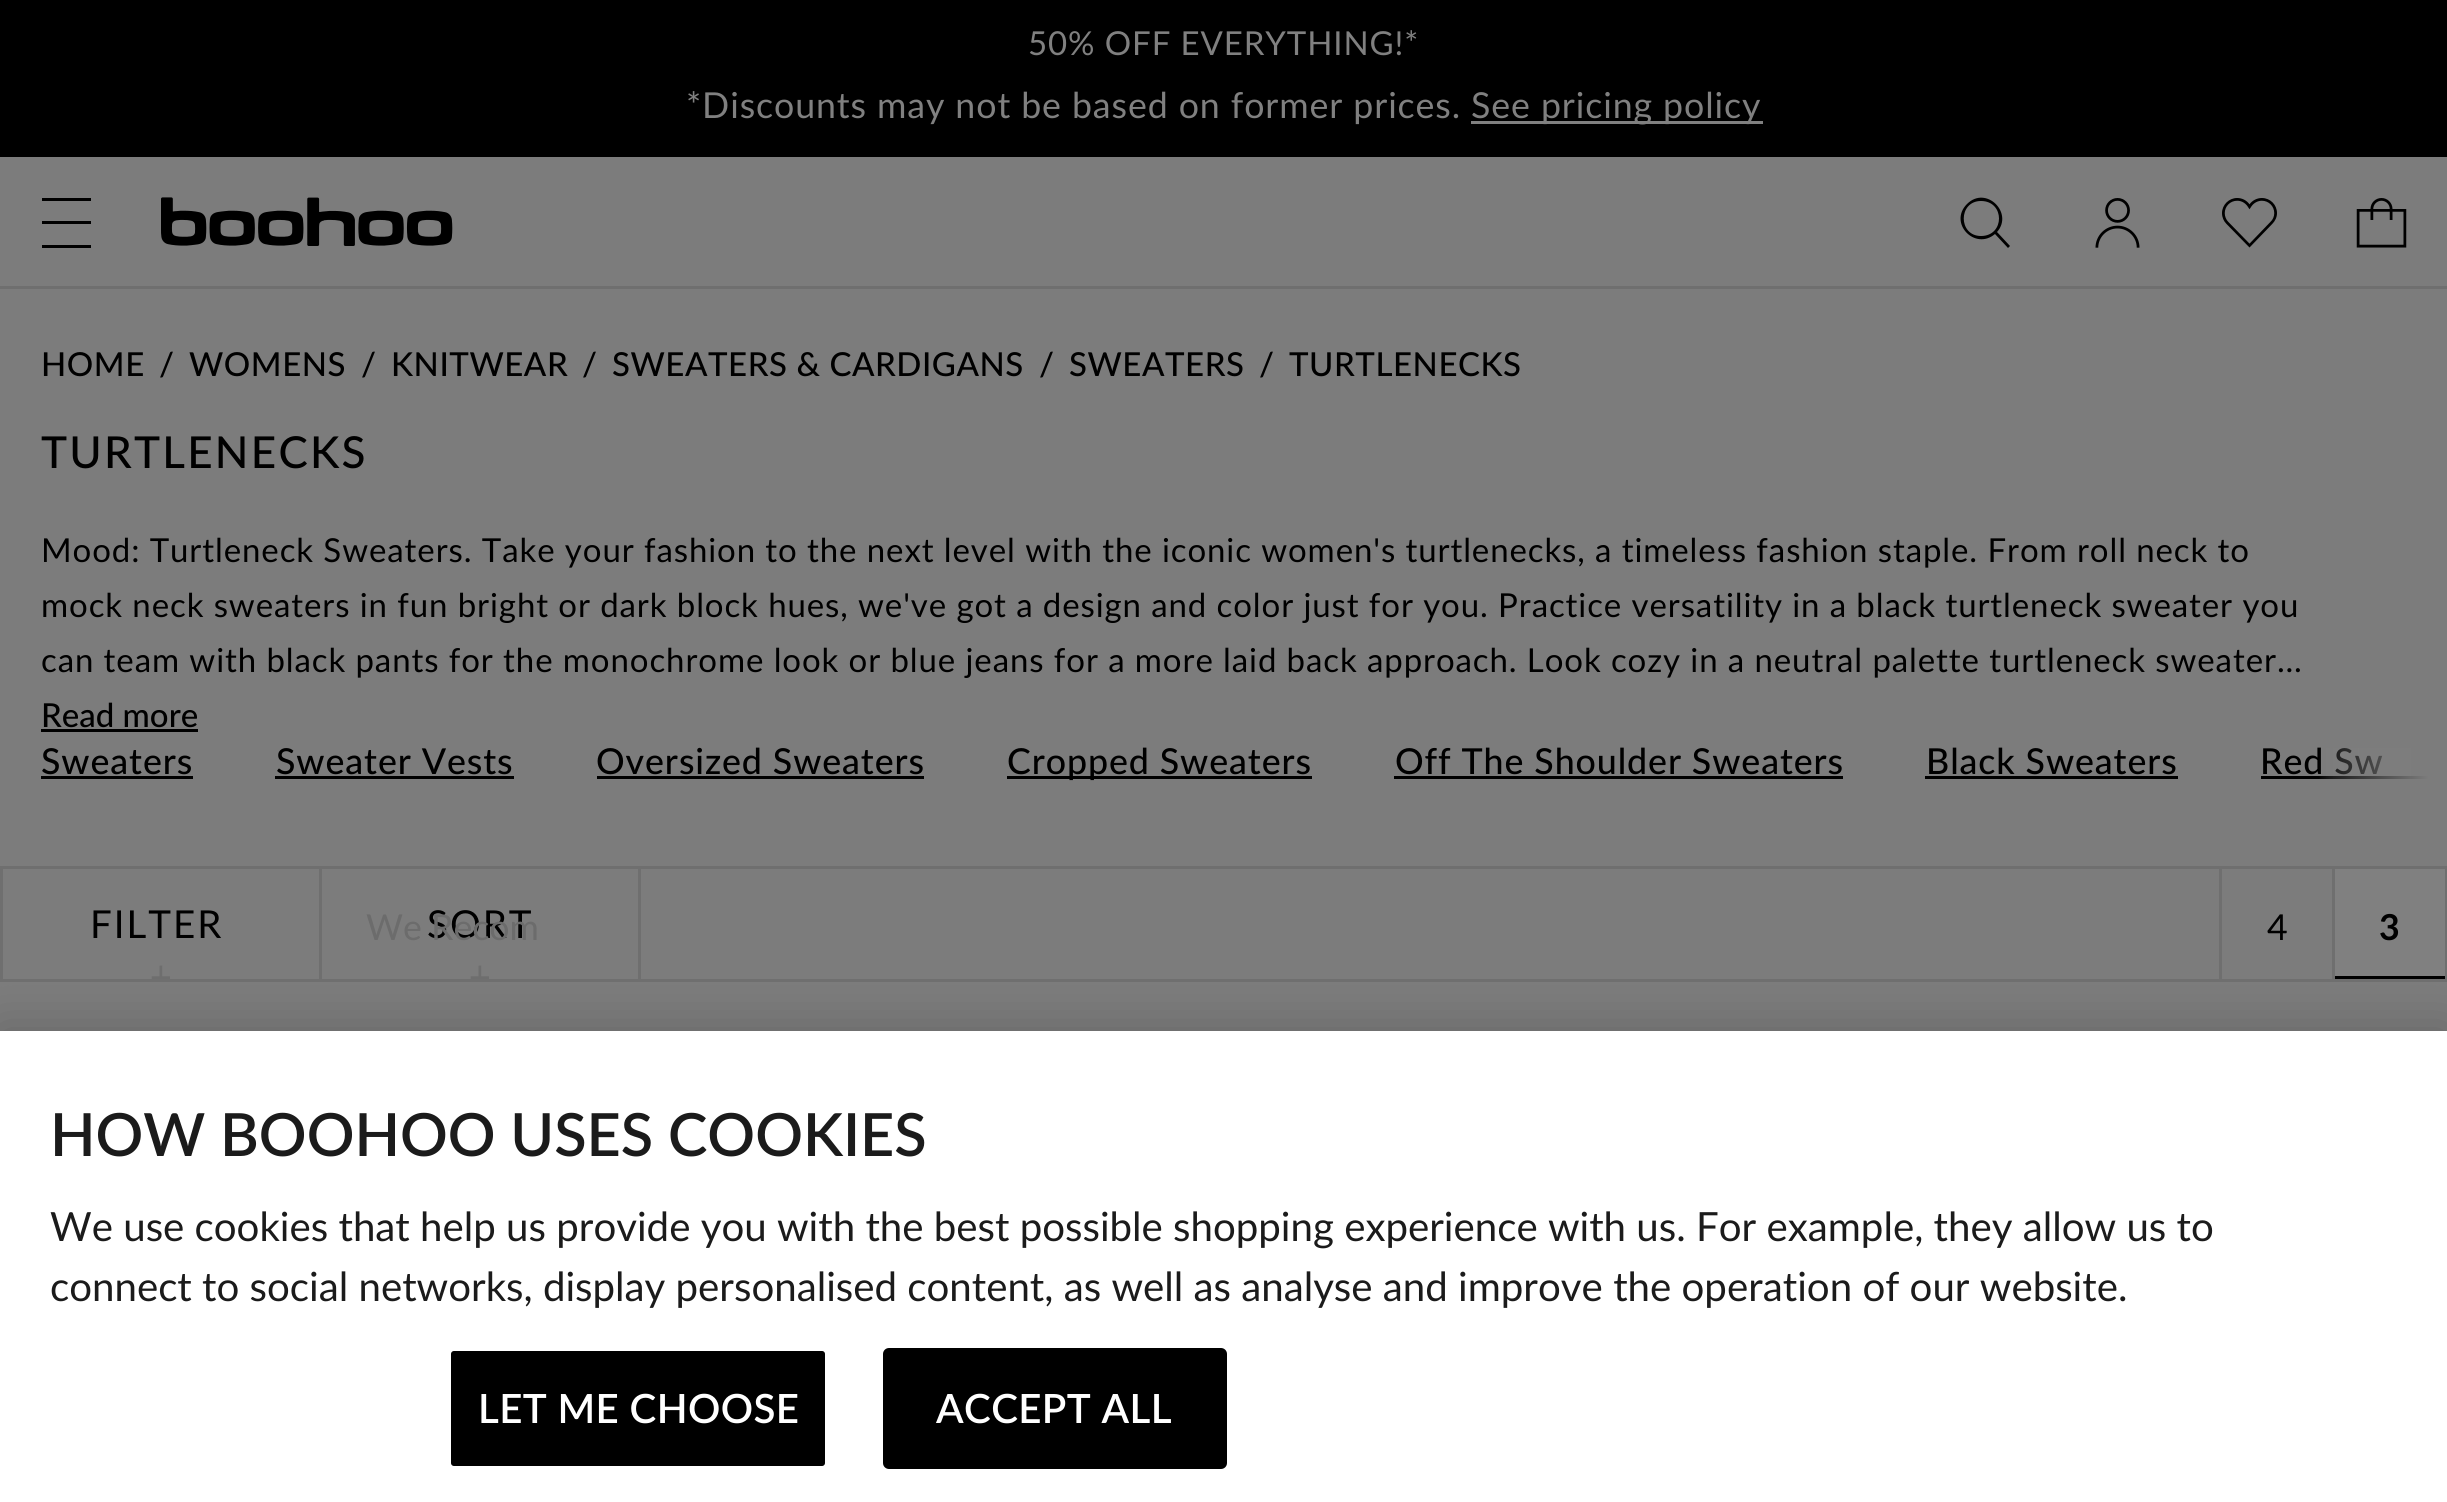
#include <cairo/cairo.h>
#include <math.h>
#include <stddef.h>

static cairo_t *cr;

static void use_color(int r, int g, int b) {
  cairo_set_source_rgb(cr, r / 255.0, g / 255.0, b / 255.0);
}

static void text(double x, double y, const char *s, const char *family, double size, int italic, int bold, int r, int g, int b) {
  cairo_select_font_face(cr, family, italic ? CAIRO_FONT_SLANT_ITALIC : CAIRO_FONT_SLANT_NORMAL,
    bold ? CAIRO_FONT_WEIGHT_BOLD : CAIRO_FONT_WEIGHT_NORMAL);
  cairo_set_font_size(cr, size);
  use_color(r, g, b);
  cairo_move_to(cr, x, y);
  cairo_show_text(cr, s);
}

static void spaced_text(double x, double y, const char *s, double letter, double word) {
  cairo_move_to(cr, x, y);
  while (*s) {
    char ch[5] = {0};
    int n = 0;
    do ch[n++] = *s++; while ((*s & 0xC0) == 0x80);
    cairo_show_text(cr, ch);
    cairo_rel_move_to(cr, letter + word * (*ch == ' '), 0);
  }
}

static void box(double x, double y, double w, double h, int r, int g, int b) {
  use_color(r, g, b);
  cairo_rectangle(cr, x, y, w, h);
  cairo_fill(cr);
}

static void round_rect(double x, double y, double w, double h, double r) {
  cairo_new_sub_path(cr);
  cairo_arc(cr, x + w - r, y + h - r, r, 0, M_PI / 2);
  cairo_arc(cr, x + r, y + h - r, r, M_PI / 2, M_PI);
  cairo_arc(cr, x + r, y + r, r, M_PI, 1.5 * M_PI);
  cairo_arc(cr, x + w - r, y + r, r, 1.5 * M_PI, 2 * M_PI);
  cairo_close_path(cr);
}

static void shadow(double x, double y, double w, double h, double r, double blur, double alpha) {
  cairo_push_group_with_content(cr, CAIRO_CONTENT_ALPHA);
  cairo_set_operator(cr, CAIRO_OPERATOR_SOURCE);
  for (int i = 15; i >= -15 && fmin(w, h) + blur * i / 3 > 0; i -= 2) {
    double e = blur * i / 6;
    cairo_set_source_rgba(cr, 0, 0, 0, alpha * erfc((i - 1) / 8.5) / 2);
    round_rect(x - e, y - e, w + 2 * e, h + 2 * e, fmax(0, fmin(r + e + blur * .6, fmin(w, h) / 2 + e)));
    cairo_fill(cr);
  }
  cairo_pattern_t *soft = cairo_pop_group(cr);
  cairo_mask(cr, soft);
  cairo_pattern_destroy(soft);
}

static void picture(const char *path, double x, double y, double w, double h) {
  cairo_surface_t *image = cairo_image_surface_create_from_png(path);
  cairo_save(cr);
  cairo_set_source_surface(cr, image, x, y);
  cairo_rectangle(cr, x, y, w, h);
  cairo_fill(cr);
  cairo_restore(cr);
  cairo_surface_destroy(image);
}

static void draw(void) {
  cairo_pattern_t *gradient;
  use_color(124, 124, 124);
  cairo_paint(cr);
  box(0, 0, 2447, 157, 0, 0, 0);
  box(1471, 121, 292, 3, 128, 128, 128);
  box(0, 286, 2447, 3, 111, 111, 111);
  box(42, 198, 49, 3, 0, 0, 0);
  box(42, 245, 49, 3, 0, 0, 0);
  box(42, 221, 49, 3, 0, 0, 0);
  picture("img_01.png", 161, 197, 292, 49);
  cairo_new_path(cr);
  cairo_move_to(cr, 2010, 246);
  cairo_line_to(cr, 1997, 232);
  cairo_curve_to(cr, 2014, 213, 1986, 185, 1967, 204);
  cairo_curve_to(cr, 1948, 223, 1975, 251, 1995, 234);
  cairo_line_to(cr, 2008, 248);
  cairo_close_path(cr);
  cairo_move_to(cr, 1981, 236);
  cairo_curve_to(cr, 1958, 236, 1958, 201, 1981, 201);
  cairo_curve_to(cr, 2005, 201, 2005, 236, 1981, 236);
  cairo_close_path(cr);
  cairo_fill(cr);
  picture("img_02.png", 2095, 198, 45, 50);
  picture("img_03.png", 2222, 198, 55, 50);
  picture("img_04.png", 2356, 198, 51, 50);
  box(41, 729, 157, 3, 0, 0, 0);
  box(41, 776, 152, 3, 0, 0, 0);
  box(275, 776, 239, 3, 0, 0, 0);
  box(597, 776, 327, 3, 0, 0, 0);
  box(1007, 776, 305, 3, 0, 0, 0);
  box(1394, 776, 449, 3, 0, 0, 0);
  box(1925, 776, 253, 3, 0, 0, 0);
  box(2261, 776, 167, 3, 0, 0, 0);
  box(641, 866, 1578, 3, 111, 111, 111);
  cairo_rectangle(cr, 1.5, 867.5, 319, 113);
  cairo_set_line_width(cr, 3);
  cairo_stroke(cr);
  picture("img_05.png", 151, 965, 19, 14);
  cairo_rectangle(cr, 320.5, 867.5, 319, 113);
  cairo_stroke(cr);
  picture("img_05.png", 470, 965, 19, 14);
  cairo_rectangle(cr, 2220.5, 867.5, 113, 113);
  cairo_stroke(cr);
  box(2335, 869, 110, 107, 128, 128, 128);
  cairo_rectangle(cr, 2333.5, 867.5, 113, 113);
  use_color(111, 111, 111);
  cairo_stroke(cr);
  box(2335, 976, 110, 3, 0, 0, 0);
  box(641, 979, 1578, 3, 111, 111, 111);
  use_color(0, 0, 0);
  shadow(0, 1031, 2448, 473, 0, 25, 0.2);
  box(0, 1031, 2447, 471, 255, 255, 255);
  use_color(0, 0, 0);
  round_rect(449.5, 1349.5, 377, 118, 4.5);
  cairo_fill_preserve(cr);
  use_color(255, 255, 255);
  cairo_stroke(cr);
  use_color(0, 0, 0);
  round_rect(884.5, 1349.5, 341, 118, 4.5);
  cairo_fill_preserve(cr);
  cairo_stroke(cr);
  cairo_select_font_face(cr, "Lato", CAIRO_FONT_SLANT_NORMAL, CAIRO_FONT_WEIGHT_NORMAL);
  cairo_set_font_size(cr, 33);
  use_color(128, 128, 128);
  spaced_text(1028, 55, "50% OFF EVERYTHING!*", 0.91, 0);
  cairo_set_font_size(cr, 35.75);
  spaced_text(686, 118, "*Discounts may not be based on former prices.", 0.91, 0);
  spaced_text(1471, 118, "See pricing policy", 0.91, 0);
  cairo_select_font_face(cr, "Lato Medium", CAIRO_FONT_SLANT_NORMAL, CAIRO_FONT_WEIGHT_NORMAL);
  cairo_set_font_size(cr, 33);
  use_color(0, 0, 0);
  spaced_text(41, 376, "HOME", 0.55, 0);
  spaced_text(159, 376, "/", 0.55, 0);
  spaced_text(189, 376, "WOMENS", 0.55, 0);
  spaced_text(361, 376, "/", 0.55, 0);
  spaced_text(391, 376, "KNITWEAR", 0.55, 0);
  spaced_text(582, 376, "/", 0.55, 0);
  spaced_text(612, 376, "SWEATERS & CARDIGANS", 0.55, 0);
  spaced_text(1039, 376, "/", 0.55, 0);
  spaced_text(1069, 376, "SWEATERS", 0.55, 0);
  spaced_text(1259, 376, "/", 0.55, 0);
  spaced_text(1289, 376, "TURTLENECKS", 0.55, 0);
  cairo_set_font_size(cr, 44);
  spaced_text(41, 468, "TURTLENECKS", 2.25, 0);
  cairo_select_font_face(cr, "Lato", CAIRO_FONT_SLANT_NORMAL, CAIRO_FONT_WEIGHT_NORMAL);
  cairo_set_font_size(cr, 33);
  spaced_text(41, 562, "Mood: Turtleneck Sweaters. Take your fashion to the next level with the iconic women's turtlenecks, a timeless fashion staple. From roll neck to", 0.91, 0);
  spaced_text(41, 617, "mock neck sweaters in fun bright or dark block hues, we've got a design and color just for you. Practice versatility in a black turtleneck sweater you", 0.91, 0);
  spaced_text(41, 672, "can team with black pants for the monochrome look or blue jeans for a more laid back approach. Look cozy in a neutral palette turtleneck sweater…", 0.91, 0);
  text(41, 727, "Read more", "Lato Medium", 33, 0, 0, 0, 0, 0);
  cairo_set_font_size(cr, 35.75);
  spaced_text(41, 774, "Sweaters", 0.91, 0);
  spaced_text(276, 774, "Sweater Vests", 0.91, 0);
  spaced_text(596, 774, "Oversized Sweaters", 0.91, 0);
  spaced_text(1007, 774, "Cropped Sweaters", 0.91, 0);
  spaced_text(1395, 774, "Off The Shoulder Sweaters", 0.91, 0);
  spaced_text(1926, 774, "Black Sweaters", 0.91, 0);
  spaced_text(2260, 774, "Red Sw", 0.91, 0);
  gradient = cairo_pattern_create_linear(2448, 762, 2318, 762);
  cairo_pattern_add_color_stop_rgba(gradient, 0.15, 0.486, 0.486, 0.486, 1);
  cairo_pattern_add_color_stop_rgba(gradient, 0.91, 0.502, 0.502, 0.502, 0.2);
  cairo_pattern_add_color_stop_rgba(gradient, 1, 0.502, 0.502, 0.502, 0);
  cairo_set_source(cr, gradient);
  cairo_pattern_destroy(gradient);
  cairo_rectangle(cr, 2319, 748, 109, 31);
  cairo_fill(cr);
  cairo_select_font_face(cr, "Lato", CAIRO_FONT_SLANT_NORMAL, CAIRO_FONT_WEIGHT_NORMAL);
  cairo_set_font_size(cr, 38.5);
  use_color(0, 0, 0);
  spaced_text(90, 938, "FILTER", 2, 0);
  spaced_text(427, 938, "SORT", 2, 0);
  text(366, 940, "We Recom", "Lato", 35.75, 0, 0, 108, 108, 108);
  text(2267, 940, "4", "Lato", 35.75, 0, 0, 0, 0, 0);
  text(2379, 940, "3", "Lato", 35.75, 0, 1, 0, 0, 0);
  text(50, 1156, "HOW BOOHOO USES COOKIES", "Lato SemiBold", 59.4, 0, 0, 27, 27, 27);
  text(50, 1241, "We use cookies that help us provide you with the best possible shopping experience with us. For example, they allow us to", "Lato", 40.25, 0, 0, 27, 27, 27);
  text(50, 1301, "connect to social networks, display personalised content, as well as analyse and improve the operation of our website.", "Lato", 40.25, 0, 0, 27, 27, 27);
  cairo_select_font_face(cr, "Lato SemiBold", CAIRO_FONT_SLANT_NORMAL, CAIRO_FONT_WEIGHT_NORMAL);
  use_color(255, 255, 255);
  spaced_text(478, 1423, "LET ME CHOOSE", 0.4, 0);
  spaced_text(936, 1423, "ACCEPT ALL", 0.4, 0);
}

int main(void) {
  cairo_surface_t *surface = cairo_image_surface_create(CAIRO_FORMAT_RGB24, 2447, 1502);
  cr = cairo_create(surface);
  cairo_font_options_t *options = cairo_font_options_create();
  cairo_font_options_set_hint_metrics(options, CAIRO_HINT_METRICS_OFF);
  cairo_font_options_set_hint_style(options, CAIRO_HINT_STYLE_NONE);
  cairo_set_font_options(cr, options);
  cairo_set_miter_limit(cr, 4);
  draw();
  cairo_surface_write_to_png(surface, "out.png");
  cairo_font_options_destroy(options);
  cairo_destroy(cr);
  cairo_surface_destroy(surface);
  return 0;
}
